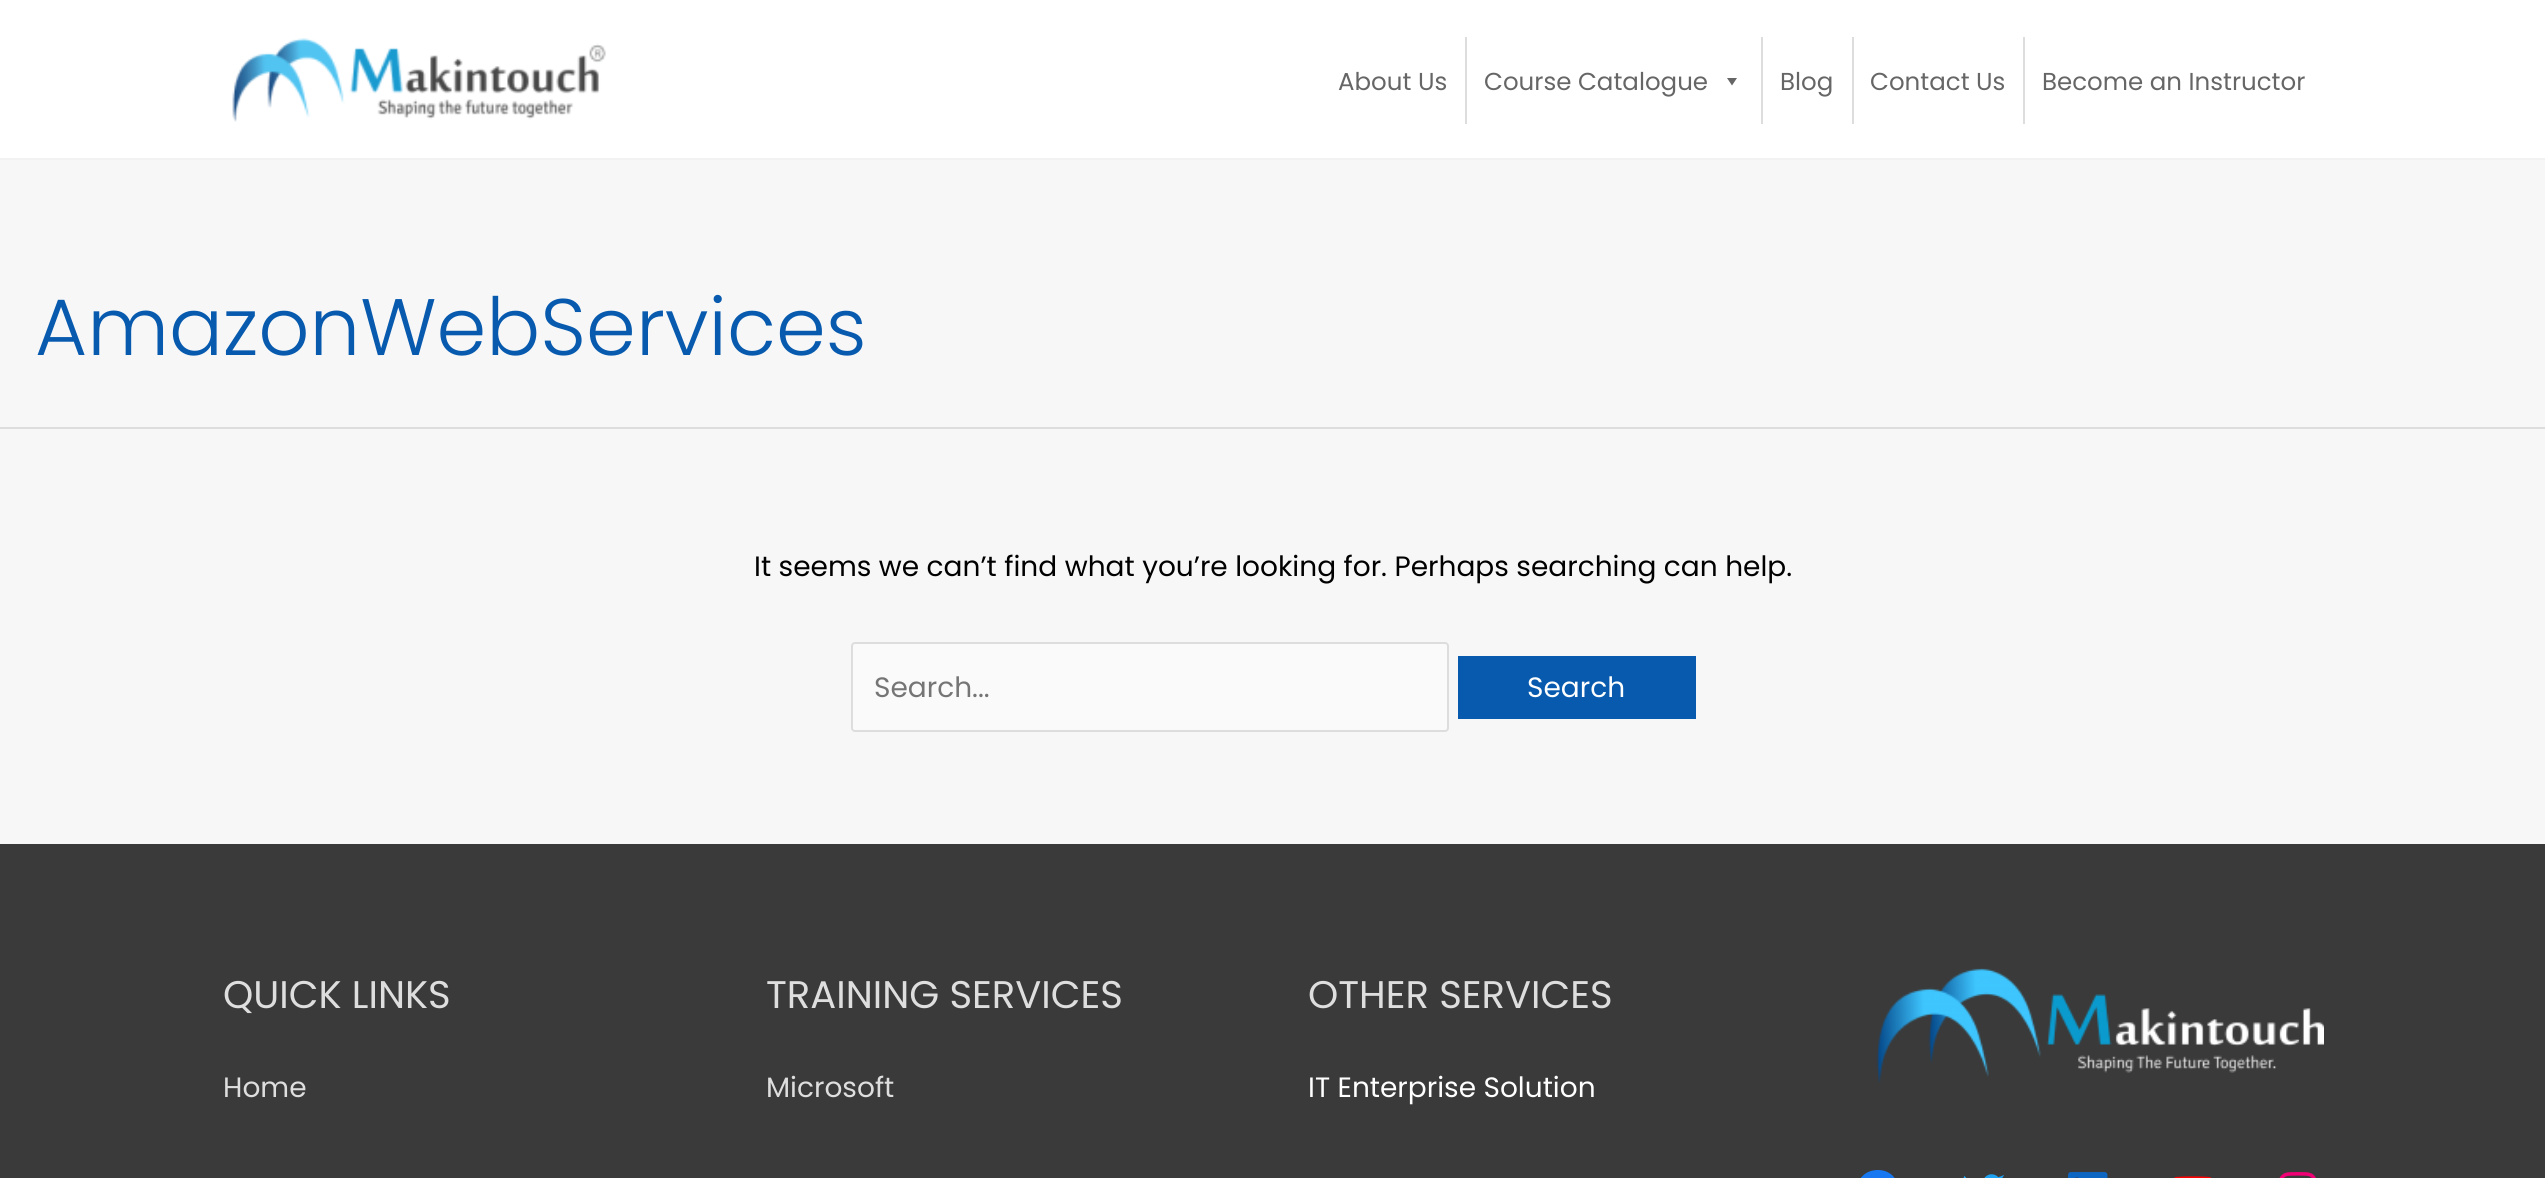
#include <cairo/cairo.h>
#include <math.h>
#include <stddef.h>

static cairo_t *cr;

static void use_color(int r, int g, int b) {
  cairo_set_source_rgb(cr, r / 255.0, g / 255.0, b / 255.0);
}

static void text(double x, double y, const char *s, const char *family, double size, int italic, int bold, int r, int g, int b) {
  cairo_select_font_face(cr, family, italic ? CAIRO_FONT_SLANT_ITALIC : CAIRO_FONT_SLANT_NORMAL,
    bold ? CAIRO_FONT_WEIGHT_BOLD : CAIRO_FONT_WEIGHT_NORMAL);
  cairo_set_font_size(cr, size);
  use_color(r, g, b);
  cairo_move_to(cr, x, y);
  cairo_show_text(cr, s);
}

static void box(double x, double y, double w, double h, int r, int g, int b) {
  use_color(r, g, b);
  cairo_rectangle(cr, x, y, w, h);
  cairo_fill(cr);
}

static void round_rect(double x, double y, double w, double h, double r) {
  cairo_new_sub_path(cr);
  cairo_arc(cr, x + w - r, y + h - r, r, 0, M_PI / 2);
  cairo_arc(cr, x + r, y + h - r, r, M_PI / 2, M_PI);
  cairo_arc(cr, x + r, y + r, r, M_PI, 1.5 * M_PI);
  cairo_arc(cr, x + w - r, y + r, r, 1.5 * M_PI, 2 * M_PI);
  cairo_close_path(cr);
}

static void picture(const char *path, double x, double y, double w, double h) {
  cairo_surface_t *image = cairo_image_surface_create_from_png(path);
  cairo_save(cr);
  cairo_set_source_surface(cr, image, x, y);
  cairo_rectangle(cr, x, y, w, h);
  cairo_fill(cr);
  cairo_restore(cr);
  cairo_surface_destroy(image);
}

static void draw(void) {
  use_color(247, 247, 247);
  cairo_paint(cr);
  box(0, 0, 2545, 158, 255, 255, 255);
  box(0, 158, 2545, 2, 242, 242, 242);
  picture("img_01.png", 232, 38, 374, 84);
  box(1465, 37, 2, 87, 221, 221, 221);
  use_color(102, 102, 102);
  cairo_new_path(cr);
  cairo_move_to(cr, 1737, 78);
  cairo_line_to(cr, 1732, 85.5);
  cairo_line_to(cr, 1727, 78);
  cairo_close_path(cr);
  cairo_fill(cr);
  box(1761, 37, 2, 87, 221, 221, 221);
  box(1852, 37, 2, 87, 221, 221, 221);
  box(2023, 37, 2, 87, 221, 221, 221);
  box(0, 427, 2545, 2, 221, 221, 221);
  use_color(250, 250, 250);
  round_rect(852, 643, 596, 88, 3);
  cairo_fill_preserve(cr);
  use_color(221, 221, 221);
  cairo_stroke(cr);
  box(1458, 656, 238, 63, 7, 90, 174);
  box(0, 844, 2545, 334, 58, 58, 58);
  picture("img_02.png", 1876, 968, 448, 115);
  use_color(23, 120, 242);
  cairo_new_path(cr);
  cairo_move_to(cr, 1878, 1170);
  cairo_curve_to(cr, 1851, 1170, 1848, 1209, 1874, 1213);
  cairo_line_to(cr, 1874, 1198);
  cairo_line_to(cr, 1869, 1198);
  cairo_line_to(cr, 1869, 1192);
  cairo_line_to(cr, 1874, 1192);
  cairo_curve_to(cr, 1874, 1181, 1876, 1177, 1887, 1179);
  cairo_line_to(cr, 1887, 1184);
  cairo_curve_to(cr, 1881, 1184, 1881, 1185, 1881, 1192);
  cairo_line_to(cr, 1887, 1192);
  cairo_line_to(cr, 1886, 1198);
  cairo_line_to(cr, 1881, 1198);
  cairo_line_to(cr, 1881, 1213);
  cairo_curve_to(cr, 1907, 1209, 1904, 1170, 1878, 1170);
  cairo_close_path(cr);
  cairo_fill(cr);
  picture("img_03.png", 1963, 1174, 41, 4);
  picture("img_04.png", 2068, 1172, 40, 6);
  picture("img_05.png", 2174, 1176, 38, 2);
  picture("img_06.png", 2279, 1172, 37, 6);
  text(1338, 90, "About Us", "Poppins", 24.5, 0, 0, 102, 102, 102);
  text(1484, 90, "Course Catalogue", "Poppins", 24.5, 0, 0, 102, 102, 102);
  text(1780, 90, "Blog", "Poppins", 24.5, 0, 0, 102, 102, 102);
  text(1870, 90, "Contact Us", "Poppins", 24.5, 0, 0, 102, 102, 102);
  text(2042, 90, "Become an Instructor", "Poppins", 24.5, 0, 0, 102, 102, 102);
  text(35, 355, "AmazonWebServices", "Poppins Light", 80, 0, 0, 7, 90, 174);
  text(754, 576, "It seems we can’t find what you’re looking for. Perhaps searching can help.", "Poppins", 28, 0, 0, 0, 0, 0);
  text(874, 697, "Search...", "Poppins", 28, 0, 0, 117, 117, 117);
  text(1527, 697, "Search", "Poppins", 28, 0, 0, 255, 255, 255);
  text(223, 1008, "QUICK LINKS", "Poppins", 38.5, 0, 0, 222, 222, 222);
  text(223, 1097, "Home", "Poppins", 28, 0, 0, 222, 222, 222);
  text(766, 1008, "TRAINING SERVICES", "Poppins", 38.5, 0, 0, 222, 222, 222);
  text(766, 1097, "Microsoft", "Poppins", 28, 0, 0, 222, 222, 222);
  text(1308, 1008, "OTHER SERVICES", "Poppins", 38.5, 0, 0, 222, 222, 222);
  text(1308, 1097, "IT Enterprise Solution", "Poppins", 28, 0, 0, 255, 255, 255);
}

int main(void) {
  cairo_surface_t *surface = cairo_image_surface_create(CAIRO_FORMAT_RGB24, 2545, 1178);
  cr = cairo_create(surface);
  cairo_font_options_t *options = cairo_font_options_create();
  cairo_font_options_set_hint_metrics(options, CAIRO_HINT_METRICS_OFF);
  cairo_font_options_set_hint_style(options, CAIRO_HINT_STYLE_NONE);
  cairo_set_font_options(cr, options);
  cairo_set_miter_limit(cr, 4);
  draw();
  cairo_surface_write_to_png(surface, "out.png");
  cairo_font_options_destroy(options);
  cairo_destroy(cr);
  cairo_surface_destroy(surface);
  return 0;
}
